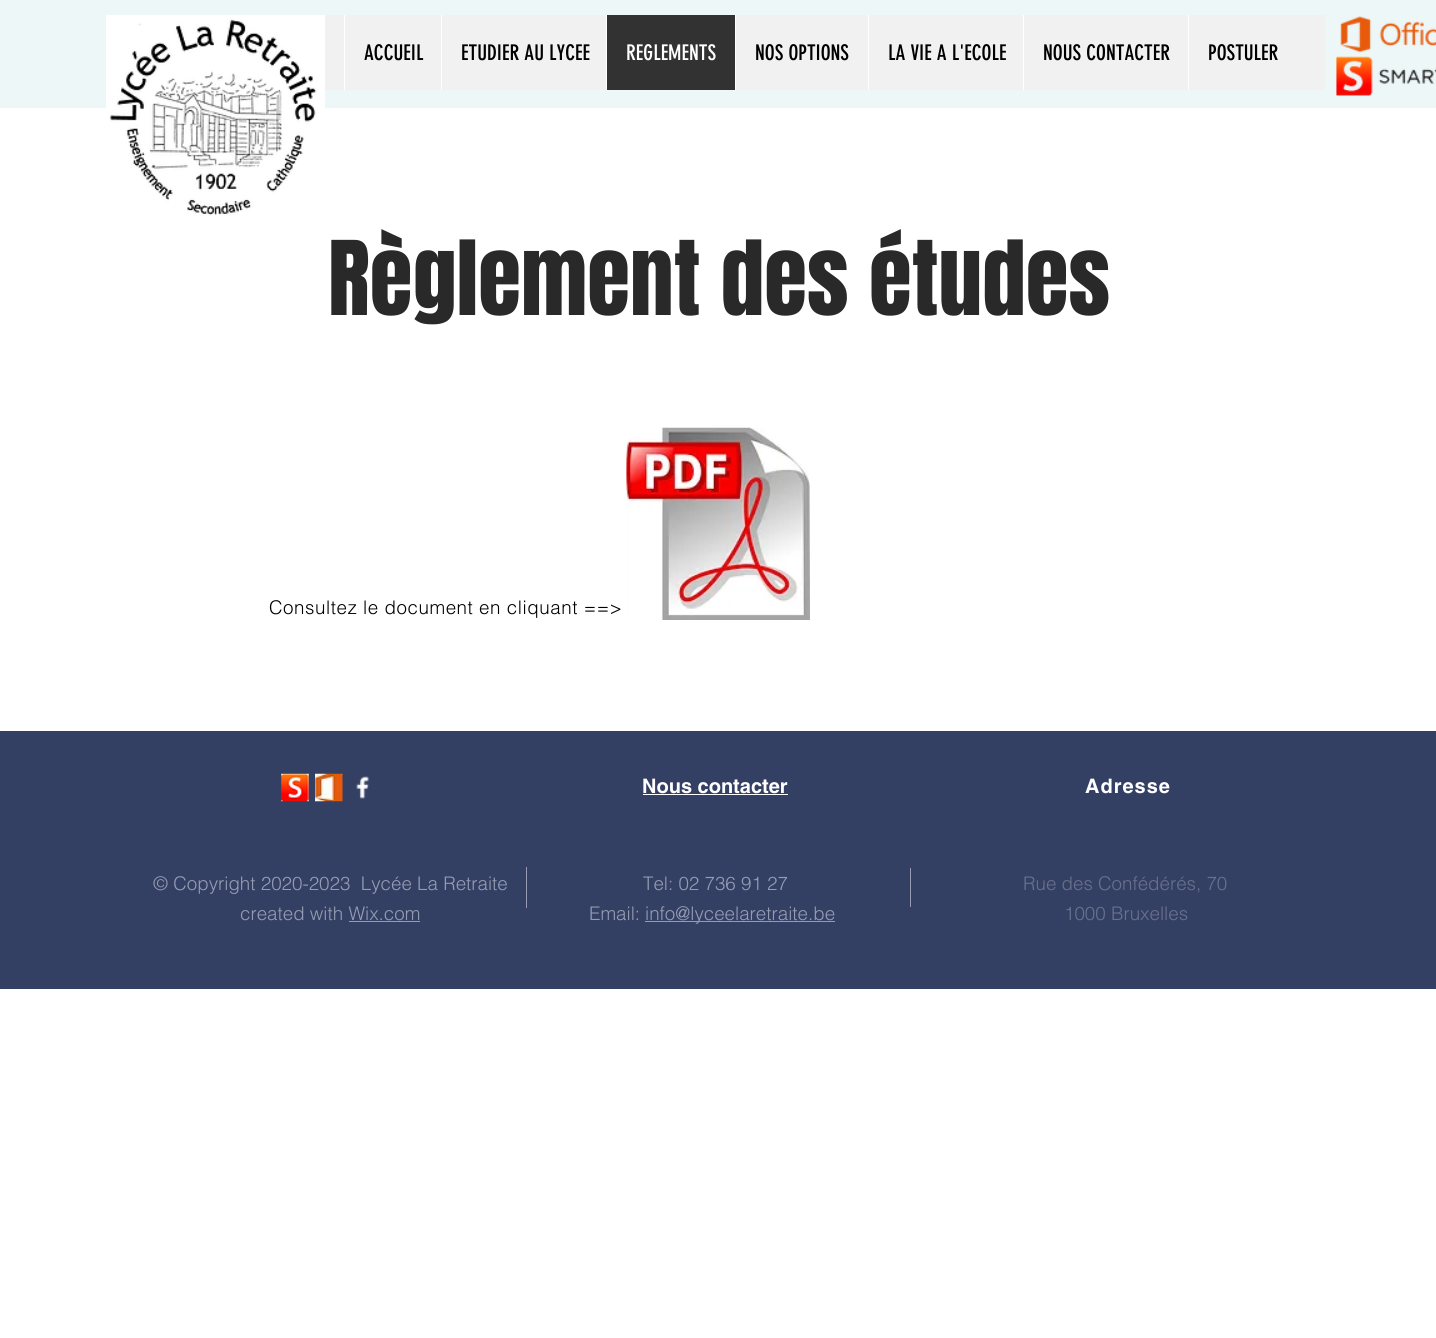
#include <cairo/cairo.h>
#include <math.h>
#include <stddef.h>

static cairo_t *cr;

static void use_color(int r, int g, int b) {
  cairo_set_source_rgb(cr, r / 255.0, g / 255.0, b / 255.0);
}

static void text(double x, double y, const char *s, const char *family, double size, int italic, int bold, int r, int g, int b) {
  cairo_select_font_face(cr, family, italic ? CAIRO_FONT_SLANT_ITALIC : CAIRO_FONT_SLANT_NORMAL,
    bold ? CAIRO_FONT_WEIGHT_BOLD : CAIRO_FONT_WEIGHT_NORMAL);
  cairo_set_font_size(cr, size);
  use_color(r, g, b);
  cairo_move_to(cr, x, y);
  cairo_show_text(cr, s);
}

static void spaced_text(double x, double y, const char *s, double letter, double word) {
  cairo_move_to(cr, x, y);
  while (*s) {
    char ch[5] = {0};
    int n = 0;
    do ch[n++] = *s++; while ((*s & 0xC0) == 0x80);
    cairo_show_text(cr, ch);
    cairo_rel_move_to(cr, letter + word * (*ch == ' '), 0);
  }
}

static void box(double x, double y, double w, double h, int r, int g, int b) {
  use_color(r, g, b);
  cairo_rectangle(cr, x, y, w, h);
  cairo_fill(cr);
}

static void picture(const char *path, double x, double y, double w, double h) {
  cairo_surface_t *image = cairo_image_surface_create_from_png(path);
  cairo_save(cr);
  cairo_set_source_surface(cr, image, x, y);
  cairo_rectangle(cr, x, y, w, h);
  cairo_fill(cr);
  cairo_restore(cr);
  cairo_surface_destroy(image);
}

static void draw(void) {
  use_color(255, 255, 255);
  cairo_paint(cr);
  box(0, 0, 1436, 108, 237, 247, 247);
  box(106, 15, 219, 93, 255, 255, 255);
  picture("img_01.png", 109, 19, 208, 197);
  box(325, 15, 1000, 75, 241, 241, 241);
  box(344, 15, 1, 75, 255, 255, 255);
  box(441, 15, 1, 75, 255, 255, 255);
  box(607, 15, 128, 75, 50, 50, 50);
  box(606, 15, 1, 75, 255, 255, 255);
  box(735, 15, 1, 75, 255, 255, 255);
  box(868, 15, 1, 75, 255, 255, 255);
  box(1023, 15, 1, 75, 255, 255, 255);
  box(1188, 15, 1, 75, 255, 255, 255);
  picture("img_02.png", 1340, 16, 96, 37);
  picture("img_03.png", 1336, 56, 100, 40);
  picture("img_04.png", 626, 427, 184, 193);
  box(0, 731, 1436, 258, 52, 63, 100);
  picture("img_05.png", 281, 773, 28, 29);
  picture("img_06.png", 315, 773, 28, 29);
  picture("img_07.png", 356, 776, 13, 23);
  box(643, 794, 145, 1, 255, 255, 255);
  box(349, 921, 71, 1, 149, 156, 178);
  box(526, 867, 1, 41, 149, 156, 178);
  box(645, 921, 190, 1, 149, 156, 178);
  box(910, 868, 1, 39, 149, 156, 178);
  text(364, 60, "ACCUEIL", "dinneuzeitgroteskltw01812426", 21.25, 0, 0, 0, 0, 0);
  text(461, 60, "ETUDIER AU LYCEE", "dinneuzeitgroteskltw01812426", 21.25, 0, 0, 0, 0, 0);
  text(626, 60, "REGLEMENTS", "dinneuzeitgroteskltw01812426", 21.25, 0, 0, 255, 255, 255);
  text(755, 60, "NOS OPTIONS", "dinneuzeitgroteskltw01812426", 21.25, 0, 0, 0, 0, 0);
  text(888, 60, "LA VIE A L'ECOLE", "dinneuzeitgroteskltw01812426", 21.25, 0, 0, 0, 0, 0);
  text(1043, 60, "NOUS CONTACTER", "dinneuzeitgroteskltw01812426", 21.25, 0, 0, 0, 0, 0);
  text(1208, 60, "POSTULER", "dinneuzeitgroteskltw01812426", 21.25, 0, 0, 0, 0, 0);
  text(328, 315, "Règlement des études", "Anton", 87.5, 0, 0, 41, 41, 41);
  cairo_select_font_face(cr, "helvetica Light", CAIRO_FONT_SLANT_NORMAL, CAIRO_FONT_WEIGHT_NORMAL);
  cairo_set_font_size(cr, 18.75);
  use_color(0, 0, 0);
  spaced_text(269, 614, "Consultez le document en cliquant ==>", 0.55, 0);
  text(642, 793, "Nous contacter", "helvetica", 20, 0, 1, 255, 255, 255);
  spaced_text(1085, 793, "Adresse", 1, 0);
  text(153, 890, "© Copyright 2020-2023  Lycée La Retraite", "helvetica Light", 18.75, 0, 0, 149, 156, 178);
  text(240, 920, "created with Wix.com", "helvetica Light", 18.75, 0, 0, 149, 156, 178);
  text(643, 890, "Tel: 02 736 91 27", "helvetica Light", 18.75, 0, 0, 149, 156, 178);
  text(589, 920, "Email:", "helvetica Light", 18.75, 0, 0, 149, 156, 178);
  text(645, 920, "info@lyceelaretraite.be", "helvetica Light", 18.75, 0, 0, 149, 156, 178);
  text(1023, 890, "Rue des Confédérés, 70", "helvetica Light", 18.75, 0, 0, 105, 113, 139);
  text(1064, 920, "1000 Bruxelles", "helvetica Light", 18.75, 0, 0, 105, 113, 139);
}

int main(void) {
  cairo_surface_t *surface = cairo_image_surface_create(CAIRO_FORMAT_RGB24, 1436, 1338);
  cr = cairo_create(surface);
  cairo_font_options_t *options = cairo_font_options_create();
  cairo_font_options_set_hint_metrics(options, CAIRO_HINT_METRICS_OFF);
  cairo_font_options_set_hint_style(options, CAIRO_HINT_STYLE_NONE);
  cairo_set_font_options(cr, options);
  cairo_set_miter_limit(cr, 4);
  draw();
  cairo_surface_write_to_png(surface, "out.png");
  cairo_font_options_destroy(options);
  cairo_destroy(cr);
  cairo_surface_destroy(surface);
  return 0;
}
